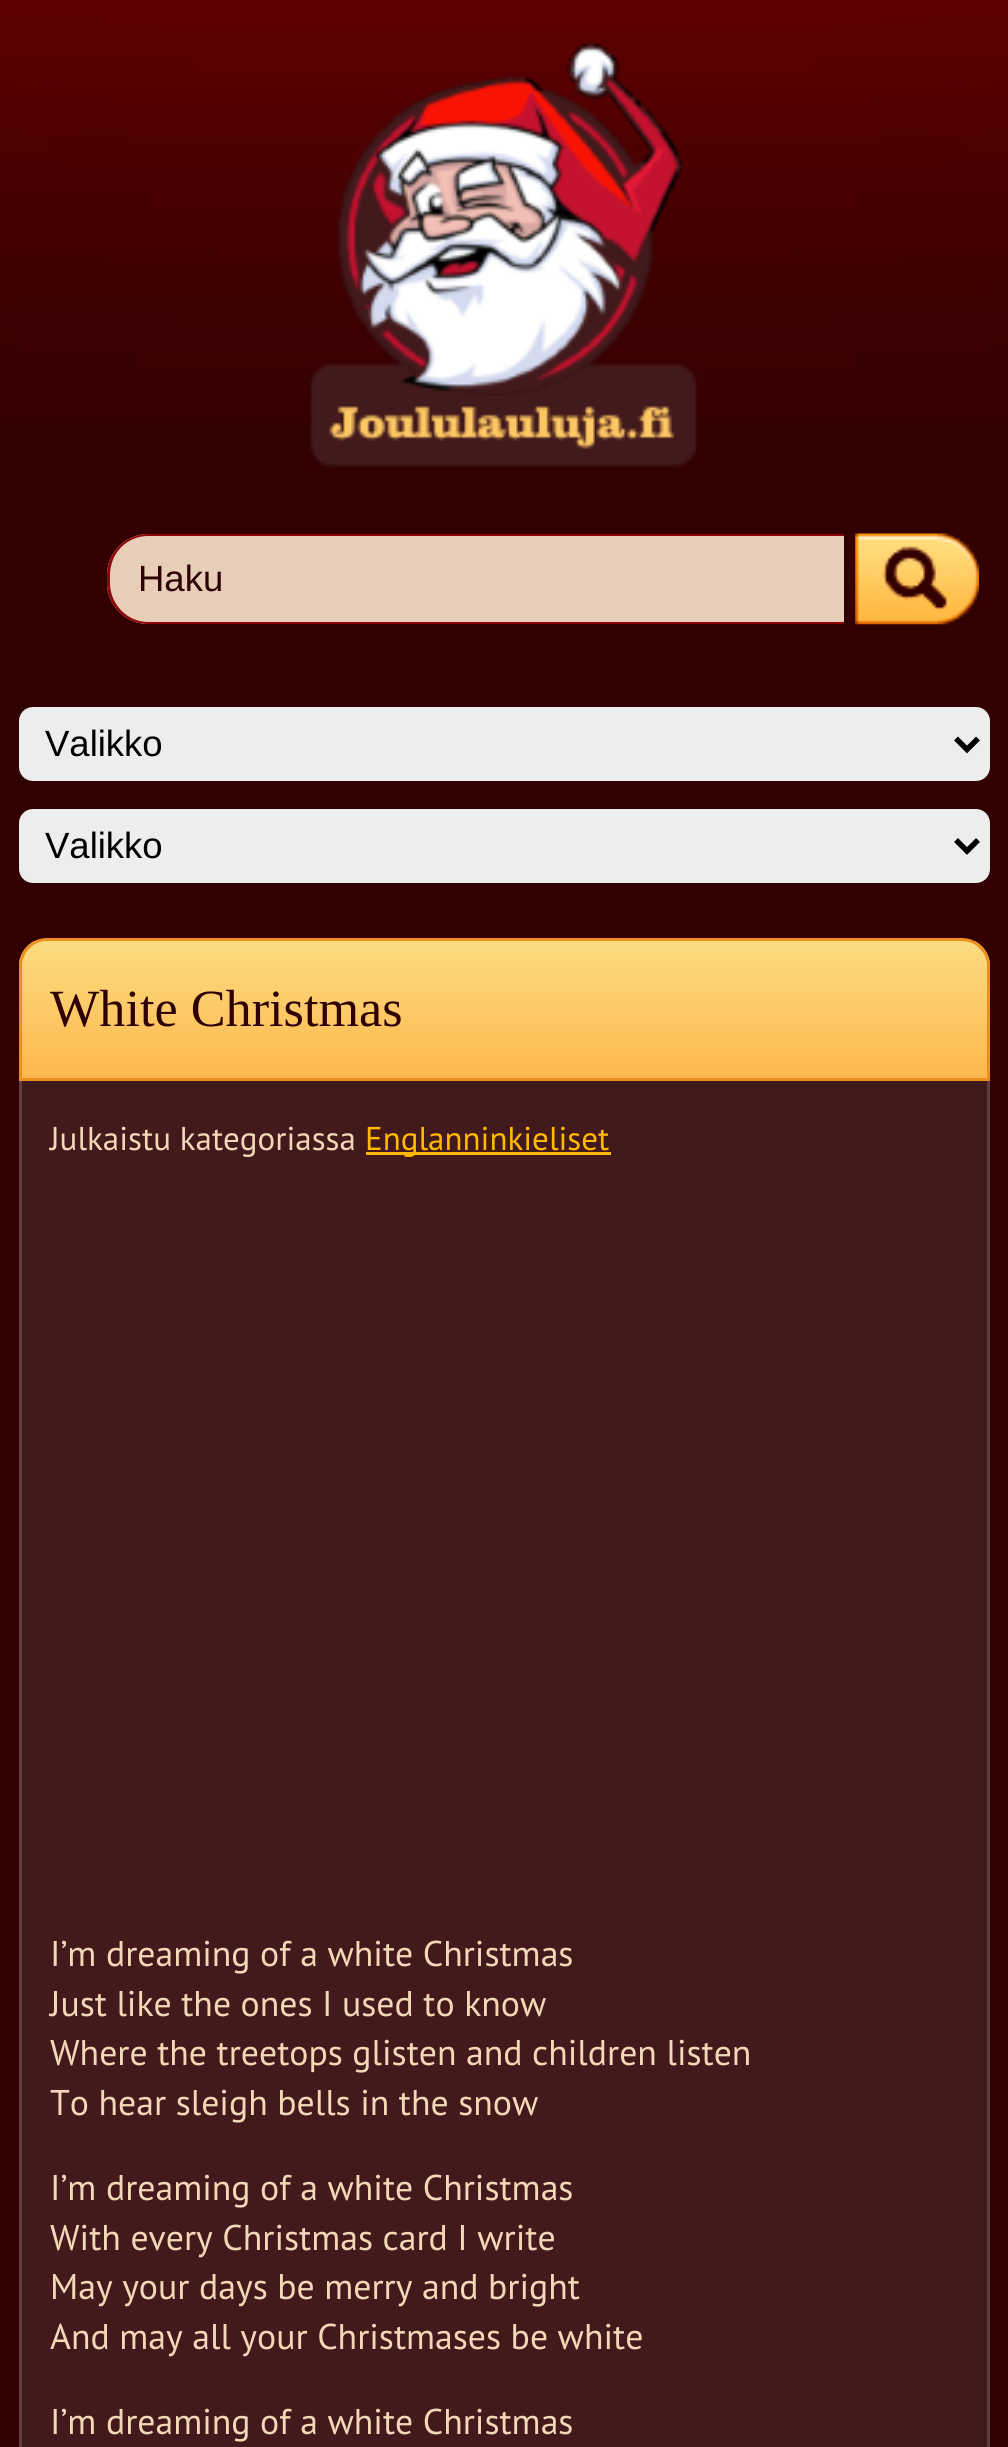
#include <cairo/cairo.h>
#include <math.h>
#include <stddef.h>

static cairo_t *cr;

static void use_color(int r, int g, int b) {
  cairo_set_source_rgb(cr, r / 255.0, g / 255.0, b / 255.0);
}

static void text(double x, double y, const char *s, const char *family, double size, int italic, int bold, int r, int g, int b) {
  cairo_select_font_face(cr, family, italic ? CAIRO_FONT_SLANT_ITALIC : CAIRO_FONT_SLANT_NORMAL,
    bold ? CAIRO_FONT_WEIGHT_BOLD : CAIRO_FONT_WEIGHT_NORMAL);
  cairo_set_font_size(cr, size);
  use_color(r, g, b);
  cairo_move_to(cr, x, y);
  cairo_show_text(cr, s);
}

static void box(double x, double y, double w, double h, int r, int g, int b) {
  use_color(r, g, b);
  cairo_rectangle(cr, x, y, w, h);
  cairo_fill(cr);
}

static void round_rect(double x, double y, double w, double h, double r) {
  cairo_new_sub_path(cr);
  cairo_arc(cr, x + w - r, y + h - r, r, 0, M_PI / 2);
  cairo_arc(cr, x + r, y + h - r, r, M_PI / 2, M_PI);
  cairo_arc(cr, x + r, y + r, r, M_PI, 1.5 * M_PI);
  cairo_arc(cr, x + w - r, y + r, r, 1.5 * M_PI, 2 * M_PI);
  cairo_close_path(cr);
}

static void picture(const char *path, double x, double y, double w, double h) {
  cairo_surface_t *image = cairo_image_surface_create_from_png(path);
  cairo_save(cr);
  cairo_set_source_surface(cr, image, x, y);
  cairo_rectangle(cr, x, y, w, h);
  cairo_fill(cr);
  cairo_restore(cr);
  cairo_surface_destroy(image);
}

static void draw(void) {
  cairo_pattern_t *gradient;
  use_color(50, 0, 1);
  cairo_paint(cr);
  picture("img_01.png", 0, 0, 1008, 422);
  picture("img_02.png", 310, 41, 387, 427);
  use_color(230, 206, 184);
  cairo_new_path(cr);
  cairo_move_to(cr, 148, 534);
  cairo_line_to(cr, 844, 534);
  cairo_line_to(cr, 844, 624);
  cairo_line_to(cr, 148, 624);
  cairo_curve_to(cr, 125.5, 624, 107, 605.5, 107, 583);
  cairo_line_to(cr, 107, 575);
  cairo_curve_to(cr, 107, 552.5, 125.5, 534, 148, 534);
  cairo_close_path(cr);
  cairo_fill(cr);
  use_color(143, 4, 7);
  cairo_set_fill_rule(cr, CAIRO_FILL_RULE_EVEN_ODD);
  cairo_new_path(cr);
  cairo_move_to(cr, 148, 534);
  cairo_line_to(cr, 844, 534);
  cairo_line_to(cr, 844, 624);
  cairo_line_to(cr, 148, 624);
  cairo_curve_to(cr, 126, 624, 107, 606, 107, 583);
  cairo_line_to(cr, 107, 575);
  cairo_curve_to(cr, 107, 552, 126, 534, 148, 534);
  cairo_close_path(cr);
  cairo_move_to(cr, 148, 536);
  cairo_line_to(cr, 844, 536);
  cairo_line_to(cr, 844, 622);
  cairo_line_to(cr, 148, 622);
  cairo_curve_to(cr, 127, 622, 110, 604, 110, 583);
  cairo_line_to(cr, 110, 575);
  cairo_curve_to(cr, 110, 553, 127, 536, 148, 536);
  cairo_close_path(cr);
  cairo_fill(cr);
  picture("img_03.png", 855, 533, 124, 92);
  use_color(237, 237, 237);
  round_rect(19, 707, 971, 74, 14);
  cairo_fill(cr);
  cairo_new_path(cr);
  cairo_move_to(cr, 956, 738.5);
  cairo_line_to(cr, 967, 749.5);
  cairo_line_to(cr, 978, 738.5);
  use_color(0, 0, 0);
  cairo_set_line_width(cr, 5.5);
  cairo_stroke(cr);
  use_color(237, 237, 237);
  round_rect(19, 809, 971, 74, 14);
  cairo_fill(cr);
  cairo_new_path(cr);
  cairo_move_to(cr, 956, 840);
  cairo_line_to(cr, 967, 851);
  cairo_line_to(cr, 978, 840);
  use_color(0, 0, 0);
  cairo_stroke(cr);
  cairo_save(cr);
  cairo_set_fill_rule(cr, CAIRO_FILL_RULE_WINDING);
  cairo_new_path(cr);
  cairo_move_to(cr, 47, 938);
  cairo_line_to(cr, 962, 938);
  cairo_curve_to(cr, 977.5, 938, 990, 950.5, 990, 966);
  cairo_line_to(cr, 990, 1081);
  cairo_line_to(cr, 19, 1081);
  cairo_line_to(cr, 19, 966);
  cairo_curve_to(cr, 19, 950.5, 31.5, 938, 47, 938);
  cairo_close_path(cr);
  cairo_clip(cr);
  gradient = cairo_pattern_create_linear(505, 941, 505, 1078);
  cairo_pattern_add_color_stop_rgba(gradient, 0, 0.984, 0.863, 0.506, 1);
  cairo_pattern_add_color_stop_rgba(gradient, 1, 1, 0.718, 0.298, 1);
  cairo_set_source(cr, gradient);
  cairo_pattern_destroy(gradient);
  cairo_rectangle(cr, 19, 941, 971, 137);
  cairo_fill(cr);
  cairo_restore(cr);
  cairo_new_path(cr);
  cairo_move_to(cr, 47, 939.5);
  cairo_line_to(cr, 962, 939.5);
  cairo_curve_to(cr, 976.5, 939.5, 988.5, 951.5, 988.5, 966);
  cairo_line_to(cr, 988.5, 1079.5);
  cairo_line_to(cr, 20.5, 1079.5);
  cairo_line_to(cr, 20.5, 966);
  cairo_curve_to(cr, 20.5, 951.5, 32.5, 939.5, 47, 939.5);
  cairo_close_path(cr);
  use_color(235, 143, 30);
  cairo_set_line_width(cr, 3);
  cairo_stroke(cr);
  box(22, 1081, 965, 1366, 67, 26, 28);
  box(987, 1081, 3, 1366, 96, 61, 63);
  box(19, 1081, 3, 1366, 96, 61, 63);
  box(366, 1152, 245, 3, 255, 185, 0);
  text(138, 591, "Haku", "Liberation Sans", 36.5, 0, 0, 46, 0, 2);
  text(45, 756, "Valikko", "Liberation Sans", 36.5, 0, 0, 0, 0, 0);
  text(45, 858, "Valikko", "Liberation Sans", 36.5, 0, 0, 0, 0, 0);
  text(50, 1026, "White Christmas", "Liberation Serif", 52.25, 0, 0, 46, 0, 2);
  text(50, 1150, "Julkaistu kategoriassa", "PT Sans", 33, 0, 0, 243, 216, 184);
  text(365, 1150, "Englanninkieliset", "PT Sans", 33, 0, 0, 255, 185, 0);
  text(50, 1966, "I’m dreaming of a white Christmas", "PT Sans", 35.75, 0, 0, 243, 216, 184);
  text(50, 2016, "Just like the ones I used to know", "PT Sans", 35.75, 0, 0, 243, 216, 184);
  text(50, 2065, "Where the treetops glisten and children listen", "PT Sans", 35.75, 0, 0, 243, 216, 184);
  text(50, 2115, "To hear sleigh bells in the snow", "PT Sans", 35.75, 0, 0, 243, 216, 184);
  text(50, 2200, "I’m dreaming of a white Christmas", "PT Sans", 35.75, 0, 0, 243, 216, 184);
  text(50, 2250, "With every Christmas card I write", "PT Sans", 35.75, 0, 0, 243, 216, 184);
  text(50, 2299, "May your days be merry and bright", "PT Sans", 35.75, 0, 0, 243, 216, 184);
  text(50, 2349, "And may all your Christmases be white", "PT Sans", 35.75, 0, 0, 243, 216, 184);
  text(50, 2434, "I’m dreaming of a white Christmas", "PT Sans", 35.75, 0, 0, 243, 216, 184);
}

int main(void) {
  cairo_surface_t *surface = cairo_image_surface_create(CAIRO_FORMAT_RGB24, 1008, 2447);
  cr = cairo_create(surface);
  cairo_font_options_t *options = cairo_font_options_create();
  cairo_font_options_set_hint_metrics(options, CAIRO_HINT_METRICS_OFF);
  cairo_font_options_set_hint_style(options, CAIRO_HINT_STYLE_NONE);
  cairo_set_font_options(cr, options);
  cairo_set_miter_limit(cr, 4);
  draw();
  cairo_surface_write_to_png(surface, "out.png");
  cairo_font_options_destroy(options);
  cairo_destroy(cr);
  cairo_surface_destroy(surface);
  return 0;
}
